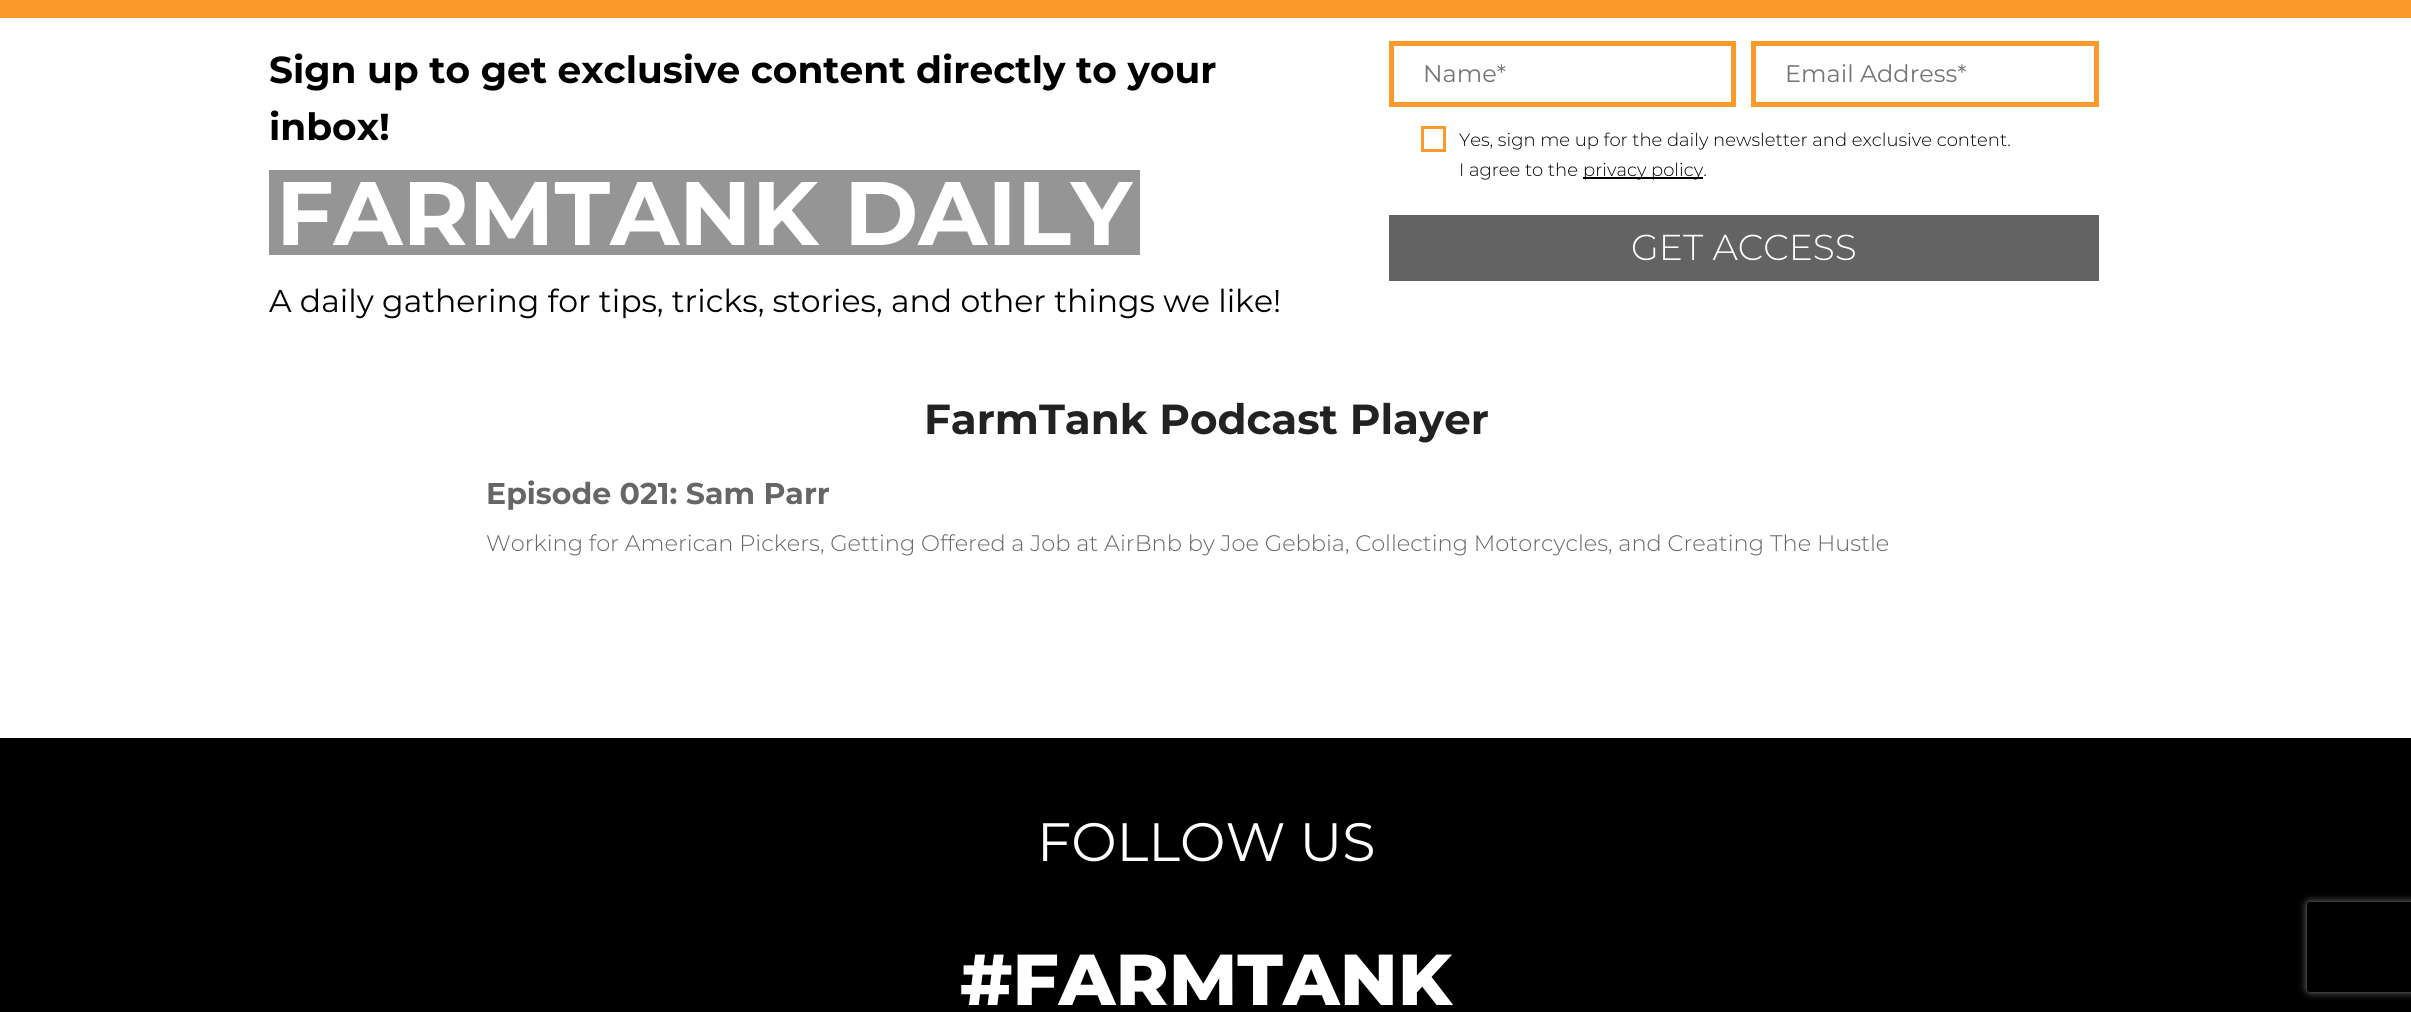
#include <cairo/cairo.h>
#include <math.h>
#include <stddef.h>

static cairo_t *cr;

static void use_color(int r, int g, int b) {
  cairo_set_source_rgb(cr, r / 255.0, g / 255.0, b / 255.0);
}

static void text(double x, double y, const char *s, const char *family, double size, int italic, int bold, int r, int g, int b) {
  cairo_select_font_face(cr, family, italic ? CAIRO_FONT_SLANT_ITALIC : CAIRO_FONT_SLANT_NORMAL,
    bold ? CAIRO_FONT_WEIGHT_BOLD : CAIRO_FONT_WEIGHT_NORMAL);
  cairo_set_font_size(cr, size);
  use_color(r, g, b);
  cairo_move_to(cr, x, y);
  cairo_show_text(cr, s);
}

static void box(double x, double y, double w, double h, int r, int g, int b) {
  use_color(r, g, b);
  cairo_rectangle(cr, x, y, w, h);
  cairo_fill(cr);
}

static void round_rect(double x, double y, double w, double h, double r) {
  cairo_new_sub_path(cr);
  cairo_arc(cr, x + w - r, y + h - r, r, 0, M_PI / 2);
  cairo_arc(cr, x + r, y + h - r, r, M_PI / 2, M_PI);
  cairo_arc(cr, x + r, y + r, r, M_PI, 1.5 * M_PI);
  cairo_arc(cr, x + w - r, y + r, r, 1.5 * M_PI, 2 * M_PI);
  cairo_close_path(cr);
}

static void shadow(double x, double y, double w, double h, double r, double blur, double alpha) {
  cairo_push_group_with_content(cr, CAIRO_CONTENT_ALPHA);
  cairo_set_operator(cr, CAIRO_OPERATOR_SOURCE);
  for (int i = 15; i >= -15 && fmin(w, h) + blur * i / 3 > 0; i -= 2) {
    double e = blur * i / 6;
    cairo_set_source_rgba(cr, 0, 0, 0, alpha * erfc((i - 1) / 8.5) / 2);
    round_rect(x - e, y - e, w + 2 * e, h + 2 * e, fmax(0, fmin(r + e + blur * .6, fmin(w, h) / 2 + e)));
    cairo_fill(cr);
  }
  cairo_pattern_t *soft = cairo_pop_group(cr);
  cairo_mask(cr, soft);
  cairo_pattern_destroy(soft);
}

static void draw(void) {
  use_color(255, 255, 255);
  cairo_paint(cr);
  box(0, 0, 2411, 18, 250, 154, 44);
  box(269, 170, 871, 85, 149, 149, 149);
  cairo_rectangle(cr, 1391.5, 43.5, 342, 61);
  use_color(249, 154, 43);
  cairo_set_line_width(cr, 5);
  cairo_stroke(cr);
  cairo_rectangle(cr, 1753.5, 43.5, 343, 61);
  cairo_stroke(cr);
  cairo_rectangle(cr, 1422.5, 127.5, 22, 23);
  cairo_set_line_width(cr, 3);
  cairo_stroke(cr);
  box(1583, 177, 120, 2, 0, 0, 0);
  box(1389, 215, 710, 66, 99, 99, 99);
  box(0, 738, 2411, 274, 0, 0, 0);
  cairo_save(cr);
  cairo_set_fill_rule(cr, CAIRO_FILL_RULE_EVEN_ODD);
  cairo_new_path(cr);
  cairo_move_to(cr, 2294, 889);
  cairo_line_to(cr, 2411, 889);
  cairo_line_to(cr, 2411, 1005);
  cairo_line_to(cr, 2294, 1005);
  cairo_close_path(cr);
  cairo_move_to(cr, 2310, 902);
  cairo_line_to(cr, 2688, 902);
  cairo_curve_to(cr, 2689.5, 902, 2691, 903.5, 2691, 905);
  cairo_line_to(cr, 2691, 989);
  cairo_curve_to(cr, 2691, 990.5, 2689.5, 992, 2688, 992);
  cairo_line_to(cr, 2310, 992);
  cairo_curve_to(cr, 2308.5, 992, 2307, 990.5, 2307, 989);
  cairo_line_to(cr, 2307, 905);
  cairo_curve_to(cr, 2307, 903.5, 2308.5, 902, 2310, 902);
  cairo_close_path(cr);
  cairo_clip(cr);
  use_color(128, 128, 128);
  shadow(2307, 902, 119, 90, 3, 4, 1);
  cairo_restore(cr);
  text(269, 83, "Sign up to get exclusive content directly to your", "Montserrat", 37.5, 0, 1, 0, 0, 0);
  text(269, 140, "inbox!", "Montserrat", 37.5, 0, 1, 0, 0, 0);
  text(276, 245, "FARMTANK DAILY", "Montserrat", 90, 0, 1, 255, 255, 255);
  text(269, 312, "A daily gathering for tips, tricks, stories, and other things we like!", "Montserrat", 31.5, 0, 0, 0, 0, 0);
  text(1423, 82, "Name*", "Montserrat", 24, 0, 0, 117, 117, 117);
  text(1785, 82, "Email Address*", "Montserrat", 24, 0, 0, 117, 117, 117);
  text(1459, 146, "Yes, sign me up for the daily newsletter and exclusive content.", "Montserrat Light", 18, 0, 0, 0, 0, 0);
  text(1459, 176, "I agree to the", "Montserrat Light", 18, 0, 0, 0, 0, 0);
  text(1583, 176, "privacy policy.", "Montserrat Light", 18, 0, 0, 0, 0, 0);
  text(1631, 260, "GET ACCESS", "Montserrat Light", 36, 0, 0, 255, 255, 255);
  text(924, 434, "FarmTank Podcast Player", "Montserrat", 42, 0, 1, 34, 34, 34);
  text(486, 504, "Episode 021: Sam Parr", "Montserrat", 30, 0, 1, 102, 102, 102);
  text(486, 551, "Working for American Pickers, Getting Offered a Job at AirBnb by Joe Gebbia, Collecting Motorcycles, and Creating The Hustle", "Montserrat Light", 22.5, 0, 0, 102, 102, 102);
  text(1037, 861, "FOLLOW US", "Montserrat", 54, 0, 0, 255, 255, 255);
  text(960, 1005, "#FARMTANK", "Montserrat ExtraBold", 72, 0, 0, 255, 255, 255);
}

int main(void) {
  cairo_surface_t *surface = cairo_image_surface_create(CAIRO_FORMAT_RGB24, 2411, 1012);
  cr = cairo_create(surface);
  cairo_font_options_t *options = cairo_font_options_create();
  cairo_font_options_set_hint_metrics(options, CAIRO_HINT_METRICS_OFF);
  cairo_font_options_set_hint_style(options, CAIRO_HINT_STYLE_NONE);
  cairo_set_font_options(cr, options);
  cairo_set_miter_limit(cr, 4);
  draw();
  cairo_surface_write_to_png(surface, "out.png");
  cairo_font_options_destroy(options);
  cairo_destroy(cr);
  cairo_surface_destroy(surface);
  return 0;
}
